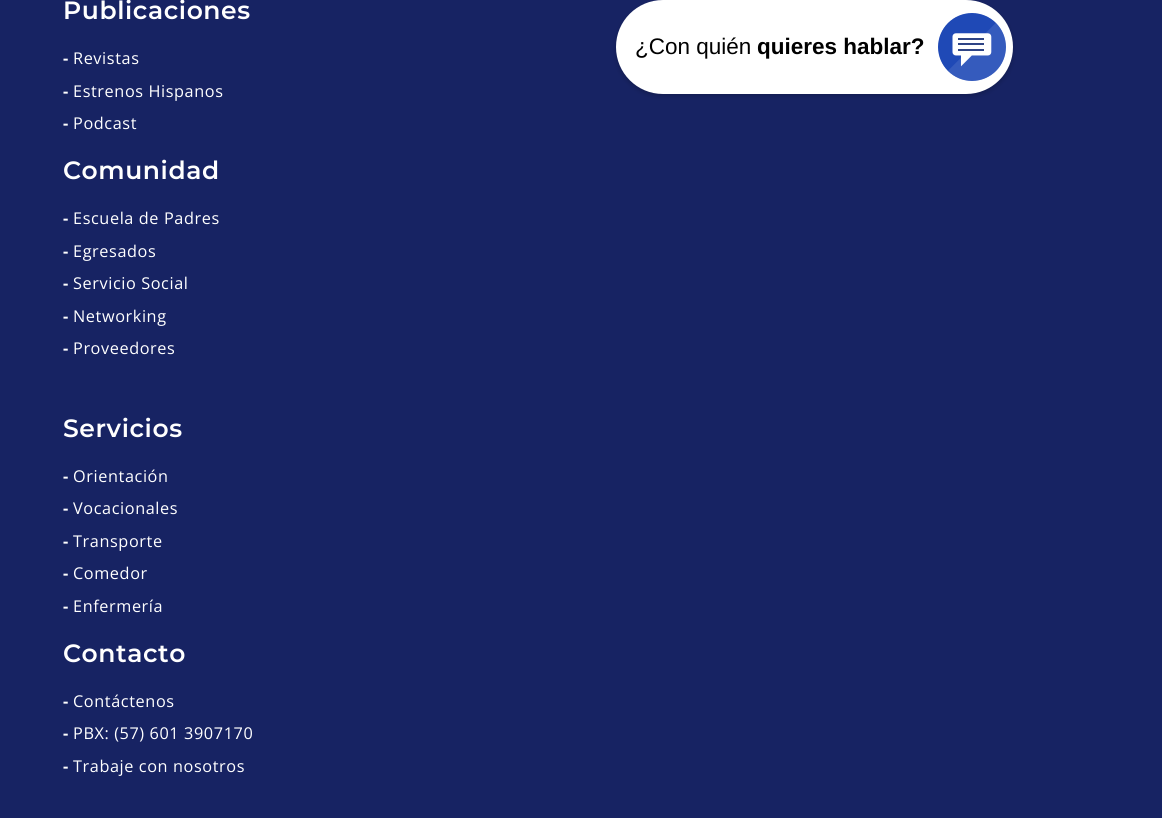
#include <cairo/cairo.h>
#include <math.h>
#include <stddef.h>

static cairo_t *cr;

static void use_color(int r, int g, int b) {
  cairo_set_source_rgb(cr, r / 255.0, g / 255.0, b / 255.0);
}

static void text(double x, double y, const char *s, const char *family, double size, int italic, int bold, int r, int g, int b) {
  cairo_select_font_face(cr, family, italic ? CAIRO_FONT_SLANT_ITALIC : CAIRO_FONT_SLANT_NORMAL,
    bold ? CAIRO_FONT_WEIGHT_BOLD : CAIRO_FONT_WEIGHT_NORMAL);
  cairo_set_font_size(cr, size);
  use_color(r, g, b);
  cairo_move_to(cr, x, y);
  cairo_show_text(cr, s);
}

static void spaced_text(double x, double y, const char *s, double letter, double word) {
  cairo_move_to(cr, x, y);
  while (*s) {
    char ch[5] = {0};
    int n = 0;
    do ch[n++] = *s++; while ((*s & 0xC0) == 0x80);
    cairo_show_text(cr, ch);
    cairo_rel_move_to(cr, letter + word * (*ch == ' '), 0);
  }
}

static void round_rect(double x, double y, double w, double h, double r) {
  cairo_new_sub_path(cr);
  cairo_arc(cr, x + w - r, y + h - r, r, 0, M_PI / 2);
  cairo_arc(cr, x + r, y + h - r, r, M_PI / 2, M_PI);
  cairo_arc(cr, x + r, y + r, r, M_PI, 1.5 * M_PI);
  cairo_arc(cr, x + w - r, y + r, r, 1.5 * M_PI, 2 * M_PI);
  cairo_close_path(cr);
}

static void shadow(double x, double y, double w, double h, double r, double blur, double alpha) {
  cairo_push_group_with_content(cr, CAIRO_CONTENT_ALPHA);
  cairo_set_operator(cr, CAIRO_OPERATOR_SOURCE);
  for (int i = 15; i >= -15 && fmin(w, h) + blur * i / 3 > 0; i -= 2) {
    double e = blur * i / 6;
    cairo_set_source_rgba(cr, 0, 0, 0, alpha * erfc((i - 1) / 8.5) / 2);
    round_rect(x - e, y - e, w + 2 * e, h + 2 * e, fmax(0, fmin(r + e + blur * .6, fmin(w, h) / 2 + e)));
    cairo_fill(cr);
  }
  cairo_pattern_t *soft = cairo_pop_group(cr);
  cairo_mask(cr, soft);
  cairo_pattern_destroy(soft);
}

static void picture(const char *path, double x, double y, double w, double h) {
  cairo_surface_t *image = cairo_image_surface_create_from_png(path);
  cairo_save(cr);
  cairo_set_source_surface(cr, image, x, y);
  cairo_rectangle(cr, x, y, w, h);
  cairo_fill(cr);
  cairo_restore(cr);
  cairo_surface_destroy(image);
}

static void draw(void) {
  use_color(23, 35, 99);
  cairo_paint(cr);
  use_color(0, 0, 0);
  shadow(616, 3, 397, 93, 46.5, 2.5, 0.2);
  use_color(255, 255, 255);
  round_rect(616, 0, 397, 94, 47);
  cairo_fill(cr);
  picture("img_01.png", 938, 13, 68, 68);
  cairo_select_font_face(cr, "Montserrat SemiBold", CAIRO_FONT_SLANT_NORMAL, CAIRO_FONT_WEIGHT_NORMAL);
  cairo_set_font_size(cr, 25);
  spaced_text(63, 19, "Publicaciones", 0.6, 0);
  cairo_select_font_face(cr, "Open Sans", CAIRO_FONT_SLANT_NORMAL, CAIRO_FONT_WEIGHT_BOLD);
  cairo_set_font_size(cr, 16.25);
  spaced_text(63, 64, "-", 0.6, 0);
  cairo_select_font_face(cr, "Open Sans", CAIRO_FONT_SLANT_NORMAL, CAIRO_FONT_WEIGHT_NORMAL);
  spaced_text(73, 64, "Revistas", 0.6, 0);
  cairo_select_font_face(cr, "Open Sans", CAIRO_FONT_SLANT_NORMAL, CAIRO_FONT_WEIGHT_BOLD);
  spaced_text(63, 97, "-", 0.6, 0);
  cairo_select_font_face(cr, "Open Sans", CAIRO_FONT_SLANT_NORMAL, CAIRO_FONT_WEIGHT_NORMAL);
  spaced_text(73, 97, "Estrenos Hispanos", 0.6, 0);
  cairo_select_font_face(cr, "Open Sans", CAIRO_FONT_SLANT_NORMAL, CAIRO_FONT_WEIGHT_BOLD);
  spaced_text(63, 129, "-", 0.6, 0);
  cairo_select_font_face(cr, "Open Sans", CAIRO_FONT_SLANT_NORMAL, CAIRO_FONT_WEIGHT_NORMAL);
  spaced_text(73, 129, "Podcast", 0.6, 0);
  cairo_select_font_face(cr, "Montserrat SemiBold", CAIRO_FONT_SLANT_NORMAL, CAIRO_FONT_WEIGHT_NORMAL);
  cairo_set_font_size(cr, 25);
  spaced_text(63, 179, "Comunidad", 0.6, 0);
  cairo_select_font_face(cr, "Open Sans", CAIRO_FONT_SLANT_NORMAL, CAIRO_FONT_WEIGHT_BOLD);
  cairo_set_font_size(cr, 16.25);
  spaced_text(63, 224, "-", 0.6, 0);
  cairo_select_font_face(cr, "Open Sans", CAIRO_FONT_SLANT_NORMAL, CAIRO_FONT_WEIGHT_NORMAL);
  spaced_text(73, 224, "Escuela de Padres", 0.6, 0);
  cairo_select_font_face(cr, "Open Sans", CAIRO_FONT_SLANT_NORMAL, CAIRO_FONT_WEIGHT_BOLD);
  spaced_text(63, 257, "-", 0.6, 0);
  cairo_select_font_face(cr, "Open Sans", CAIRO_FONT_SLANT_NORMAL, CAIRO_FONT_WEIGHT_NORMAL);
  spaced_text(73, 257, "Egresados", 0.6, 0);
  cairo_select_font_face(cr, "Open Sans", CAIRO_FONT_SLANT_NORMAL, CAIRO_FONT_WEIGHT_BOLD);
  spaced_text(63, 289, "-", 0.6, 0);
  cairo_select_font_face(cr, "Open Sans", CAIRO_FONT_SLANT_NORMAL, CAIRO_FONT_WEIGHT_NORMAL);
  spaced_text(73, 289, "Servicio Social", 0.6, 0);
  cairo_select_font_face(cr, "Open Sans", CAIRO_FONT_SLANT_NORMAL, CAIRO_FONT_WEIGHT_BOLD);
  spaced_text(63, 322, "-", 0.6, 0);
  cairo_select_font_face(cr, "Open Sans", CAIRO_FONT_SLANT_NORMAL, CAIRO_FONT_WEIGHT_NORMAL);
  spaced_text(73, 322, "Networking", 0.6, 0);
  cairo_select_font_face(cr, "Open Sans", CAIRO_FONT_SLANT_NORMAL, CAIRO_FONT_WEIGHT_BOLD);
  spaced_text(63, 354, "-", 0.6, 0);
  cairo_select_font_face(cr, "Open Sans", CAIRO_FONT_SLANT_NORMAL, CAIRO_FONT_WEIGHT_NORMAL);
  spaced_text(73, 354, "Proveedores", 0.6, 0);
  cairo_select_font_face(cr, "Montserrat SemiBold", CAIRO_FONT_SLANT_NORMAL, CAIRO_FONT_WEIGHT_NORMAL);
  cairo_set_font_size(cr, 25);
  spaced_text(63, 437, "Servicios", 0.6, 0);
  cairo_select_font_face(cr, "Open Sans", CAIRO_FONT_SLANT_NORMAL, CAIRO_FONT_WEIGHT_BOLD);
  cairo_set_font_size(cr, 16.25);
  spaced_text(63, 482, "-", 0.6, 0);
  cairo_select_font_face(cr, "Open Sans", CAIRO_FONT_SLANT_NORMAL, CAIRO_FONT_WEIGHT_NORMAL);
  spaced_text(73, 482, "Orientación", 0.6, 0);
  cairo_select_font_face(cr, "Open Sans", CAIRO_FONT_SLANT_NORMAL, CAIRO_FONT_WEIGHT_BOLD);
  spaced_text(63, 514, "-", 0.6, 0);
  cairo_select_font_face(cr, "Open Sans", CAIRO_FONT_SLANT_NORMAL, CAIRO_FONT_WEIGHT_NORMAL);
  spaced_text(73, 514, "Vocacionales", 0.6, 0);
  cairo_select_font_face(cr, "Open Sans", CAIRO_FONT_SLANT_NORMAL, CAIRO_FONT_WEIGHT_BOLD);
  spaced_text(63, 547, "-", 0.6, 0);
  cairo_select_font_face(cr, "Open Sans", CAIRO_FONT_SLANT_NORMAL, CAIRO_FONT_WEIGHT_NORMAL);
  spaced_text(73, 547, "Transporte", 0.6, 0);
  cairo_select_font_face(cr, "Open Sans", CAIRO_FONT_SLANT_NORMAL, CAIRO_FONT_WEIGHT_BOLD);
  spaced_text(63, 579, "-", 0.6, 0);
  cairo_select_font_face(cr, "Open Sans", CAIRO_FONT_SLANT_NORMAL, CAIRO_FONT_WEIGHT_NORMAL);
  spaced_text(73, 579, "Comedor", 0.6, 0);
  cairo_select_font_face(cr, "Open Sans", CAIRO_FONT_SLANT_NORMAL, CAIRO_FONT_WEIGHT_BOLD);
  spaced_text(63, 612, "-", 0.6, 0);
  cairo_select_font_face(cr, "Open Sans", CAIRO_FONT_SLANT_NORMAL, CAIRO_FONT_WEIGHT_NORMAL);
  spaced_text(73, 612, "Enfermería", 0.6, 0);
  cairo_select_font_face(cr, "Montserrat SemiBold", CAIRO_FONT_SLANT_NORMAL, CAIRO_FONT_WEIGHT_NORMAL);
  cairo_set_font_size(cr, 25);
  spaced_text(63, 662, "Contacto", 0.6, 0);
  cairo_select_font_face(cr, "Open Sans", CAIRO_FONT_SLANT_NORMAL, CAIRO_FONT_WEIGHT_BOLD);
  cairo_set_font_size(cr, 16.25);
  spaced_text(63, 707, "-", 0.6, 0);
  cairo_select_font_face(cr, "Open Sans", CAIRO_FONT_SLANT_NORMAL, CAIRO_FONT_WEIGHT_NORMAL);
  spaced_text(73, 707, "Contáctenos", 0.6, 0);
  cairo_select_font_face(cr, "Open Sans", CAIRO_FONT_SLANT_NORMAL, CAIRO_FONT_WEIGHT_BOLD);
  spaced_text(63, 739, "-", 0.6, 0);
  cairo_select_font_face(cr, "Open Sans", CAIRO_FONT_SLANT_NORMAL, CAIRO_FONT_WEIGHT_NORMAL);
  spaced_text(73, 739, "PBX: (57) 601 3907170", 0.6, 0);
  cairo_select_font_face(cr, "Open Sans", CAIRO_FONT_SLANT_NORMAL, CAIRO_FONT_WEIGHT_BOLD);
  spaced_text(63, 772, "-", 0.6, 0);
  cairo_select_font_face(cr, "Open Sans", CAIRO_FONT_SLANT_NORMAL, CAIRO_FONT_WEIGHT_NORMAL);
  spaced_text(73, 772, "Trabaje con nosotros", 0.6, 0);
  text(635, 54, "¿Con quién", "Liberation Sans", 22.5, 0, 0, 0, 0, 0);
  text(757, 54, "quieres hablar?", "Liberation Sans", 22.5, 0, 1, 0, 0, 0);
}

int main(void) {
  cairo_surface_t *surface = cairo_image_surface_create(CAIRO_FORMAT_RGB24, 1162, 818);
  cr = cairo_create(surface);
  cairo_font_options_t *options = cairo_font_options_create();
  cairo_font_options_set_hint_metrics(options, CAIRO_HINT_METRICS_OFF);
  cairo_font_options_set_hint_style(options, CAIRO_HINT_STYLE_NONE);
  cairo_set_font_options(cr, options);
  cairo_set_miter_limit(cr, 4);
  draw();
  cairo_surface_write_to_png(surface, "out.png");
  cairo_font_options_destroy(options);
  cairo_destroy(cr);
  cairo_surface_destroy(surface);
  return 0;
}
